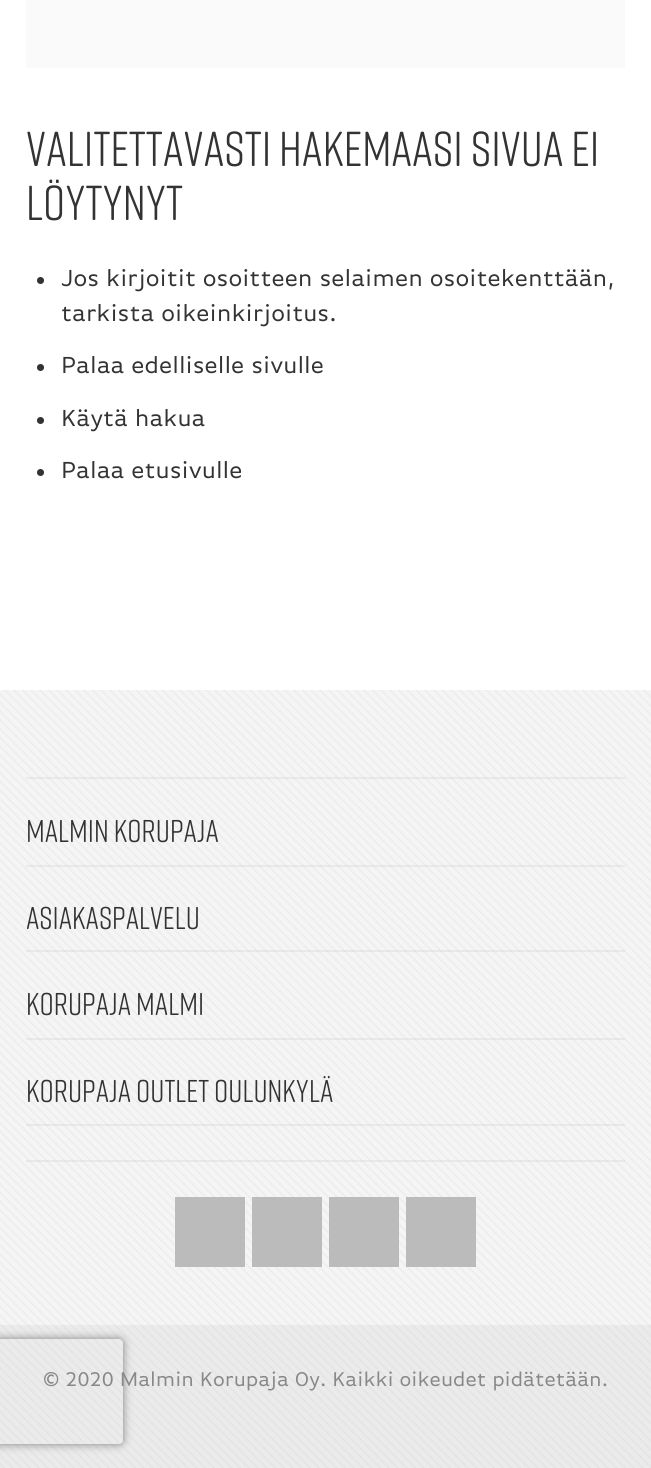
#include <cairo/cairo.h>
#include <math.h>
#include <stddef.h>

static cairo_t *cr;

static void use_color(int r, int g, int b) {
  cairo_set_source_rgb(cr, r / 255.0, g / 255.0, b / 255.0);
}

static void text(double x, double y, const char *s, const char *family, double size, int italic, int bold, int r, int g, int b) {
  cairo_select_font_face(cr, family, italic ? CAIRO_FONT_SLANT_ITALIC : CAIRO_FONT_SLANT_NORMAL,
    bold ? CAIRO_FONT_WEIGHT_BOLD : CAIRO_FONT_WEIGHT_NORMAL);
  cairo_set_font_size(cr, size);
  use_color(r, g, b);
  cairo_move_to(cr, x, y);
  cairo_show_text(cr, s);
}

static void box(double x, double y, double w, double h, int r, int g, int b) {
  use_color(r, g, b);
  cairo_rectangle(cr, x, y, w, h);
  cairo_fill(cr);
}

static void round_rect(double x, double y, double w, double h, double r) {
  cairo_new_sub_path(cr);
  cairo_arc(cr, x + w - r, y + h - r, r, 0, M_PI / 2);
  cairo_arc(cr, x + r, y + h - r, r, M_PI / 2, M_PI);
  cairo_arc(cr, x + r, y + r, r, M_PI, 1.5 * M_PI);
  cairo_arc(cr, x + w - r, y + r, r, 1.5 * M_PI, 2 * M_PI);
  cairo_close_path(cr);
}

static void shadow(double x, double y, double w, double h, double r, double blur, double alpha) {
  cairo_push_group_with_content(cr, CAIRO_CONTENT_ALPHA);
  cairo_set_operator(cr, CAIRO_OPERATOR_SOURCE);
  for (int i = 15; i >= -15 && fmin(w, h) + blur * i / 3 > 0; i -= 2) {
    double e = blur * i / 6;
    cairo_set_source_rgba(cr, 0, 0, 0, alpha * erfc((i - 1) / 8.5) / 2);
    round_rect(x - e, y - e, w + 2 * e, h + 2 * e, fmax(0, fmin(r + e + blur * .6, fmin(w, h) / 2 + e)));
    cairo_fill(cr);
  }
  cairo_pattern_t *soft = cairo_pop_group(cr);
  cairo_mask(cr, soft);
  cairo_pattern_destroy(soft);
}

static void picture(const char *path, double x, double y, double w, double h) {
  cairo_surface_t *image = cairo_image_surface_create_from_png(path);
  cairo_save(cr);
  cairo_set_source_surface(cr, image, x, y);
  cairo_rectangle(cr, x, y, w, h);
  cairo_fill(cr);
  cairo_restore(cr);
  cairo_surface_destroy(image);
}

static void draw(void) {
  use_color(255, 255, 255);
  cairo_paint(cr);
  box(26, 0, 599, 68, 250, 250, 250);
  use_color(51, 51, 51);
  cairo_arc(cr, 40.5, 280.5, 3.5, 0, 2 * M_PI);
  cairo_fill(cr);
  cairo_arc(cr, 40.5, 367.5, 3.5, 0, 2 * M_PI);
  cairo_fill(cr);
  cairo_arc(cr, 40.5, 420.5, 3.5, 0, 2 * M_PI);
  cairo_fill(cr);
  cairo_arc(cr, 40.5, 472.5, 3.5, 0, 2 * M_PI);
  cairo_fill(cr);
  box(0, 690, 651, 778, 245, 245, 245);
  picture("img_01.png", 0, 690, 651, 778);
  cairo_set_source_rgba(cr, 0, 0, 0, 0.05);
  cairo_rectangle(cr, 26, 777, 599, 2);
  cairo_fill(cr);
  cairo_rectangle(cr, 26, 865, 599, 2);
  cairo_fill(cr);
  cairo_rectangle(cr, 26, 950, 599, 2);
  cairo_fill(cr);
  cairo_rectangle(cr, 26, 1038, 599, 2);
  cairo_fill(cr);
  cairo_rectangle(cr, 26, 1124, 599, 2);
  cairo_fill(cr);
  cairo_rectangle(cr, 26, 1160, 599, 2);
  cairo_fill(cr);
  box(175, 1197, 70, 70, 187, 187, 187);
  box(252, 1197, 70, 70, 187, 187, 187);
  box(329, 1197, 70, 70, 187, 187, 187);
  box(406, 1197, 70, 70, 187, 187, 187);
  cairo_set_source_rgba(cr, 0, 0, 0, 0.04);
  cairo_rectangle(cr, 0, 1325, 651, 143);
  cairo_fill(cr);
  cairo_save(cr);
  cairo_set_fill_rule(cr, CAIRO_FILL_RULE_EVEN_ODD);
  cairo_new_path(cr);
  cairo_move_to(cr, 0, 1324);
  cairo_line_to(cr, 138, 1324);
  cairo_line_to(cr, 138, 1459);
  cairo_line_to(cr, 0, 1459);
  cairo_close_path(cr);
  cairo_move_to(cr, -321, 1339);
  cairo_line_to(cr, 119, 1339);
  cairo_curve_to(cr, 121, 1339, 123, 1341, 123, 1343);
  cairo_line_to(cr, 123, 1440);
  cairo_curve_to(cr, 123, 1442, 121, 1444, 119, 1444);
  cairo_line_to(cr, -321, 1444);
  cairo_curve_to(cr, -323, 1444, -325, 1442, -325, 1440);
  cairo_line_to(cr, -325, 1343);
  cairo_curve_to(cr, -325, 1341, -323, 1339, -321, 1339);
  cairo_close_path(cr);
  cairo_clip(cr);
  use_color(128, 128, 128);
  shadow(-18, 1339, 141, 105, 4, 4.5, 1);
  cairo_restore(cr);
  text(26, 166, "Valitettavasti hakemaasi sivua ei", "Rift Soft", 49, 0, 0, 51, 51, 51);
  text(26, 220, "löytynyt", "Rift Soft", 49, 0, 0, 51, 51, 51);
  text(61, 286, "Jos kirjoitit osoitteen selaimen osoitekenttään,", "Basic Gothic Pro", 24.5, 0, 0, 51, 51, 51);
  text(61, 321, "tarkista oikeinkirjoitus.", "Basic Gothic Pro", 24.5, 0, 0, 51, 51, 51);
  text(61, 373, "Palaa edelliselle sivulle", "Basic Gothic Pro", 24.5, 0, 0, 51, 51, 51);
  text(61, 426, "Käytä hakua", "Basic Gothic Pro", 24.5, 0, 0, 51, 51, 51);
  text(61, 478, "Palaa etusivulle", "Basic Gothic Pro", 24.5, 0, 0, 51, 51, 51);
  text(26, 842, "Malmin Korupaja", "Rift Soft", 31.5, 0, 0, 51, 51, 51);
  text(26, 929, "Asiakaspalvelu", "Rift Soft", 31.5, 0, 0, 51, 51, 51);
  text(26, 1015, "Korupaja Malmi", "Rift Soft", 31.5, 0, 0, 51, 51, 51);
  text(26, 1102, "Korupaja Outlet Oulunkylä", "Rift Soft", 31.5, 0, 0, 51, 51, 51);
  text(43, 1386, "© 2020 Malmin Korupaja Oy. Kaikki oikeudet pidätetään.", "Basic Gothic Pro", 21, 0, 0, 136, 136, 136);
}

int main(void) {
  cairo_surface_t *surface = cairo_image_surface_create(CAIRO_FORMAT_RGB24, 651, 1468);
  cr = cairo_create(surface);
  cairo_font_options_t *options = cairo_font_options_create();
  cairo_font_options_set_hint_metrics(options, CAIRO_HINT_METRICS_OFF);
  cairo_font_options_set_hint_style(options, CAIRO_HINT_STYLE_NONE);
  cairo_set_font_options(cr, options);
  cairo_set_miter_limit(cr, 4);
  draw();
  cairo_surface_write_to_png(surface, "out.png");
  cairo_font_options_destroy(options);
  cairo_destroy(cr);
  cairo_surface_destroy(surface);
  return 0;
}
